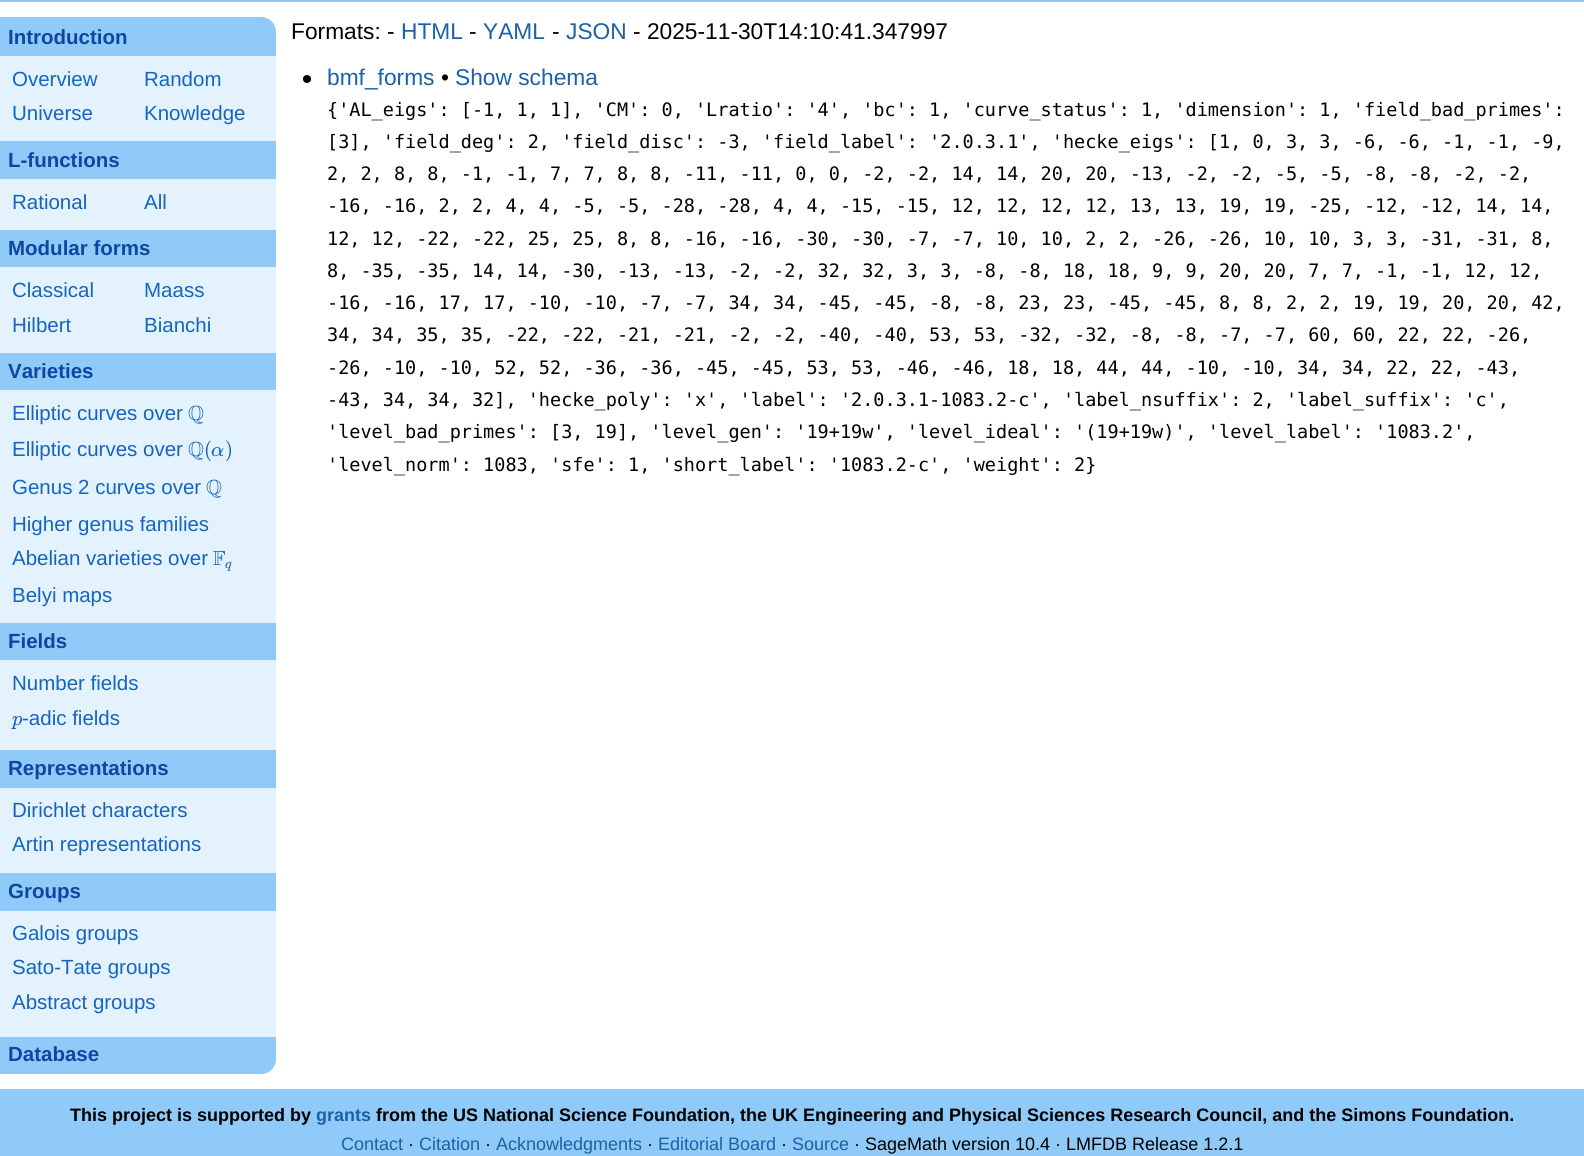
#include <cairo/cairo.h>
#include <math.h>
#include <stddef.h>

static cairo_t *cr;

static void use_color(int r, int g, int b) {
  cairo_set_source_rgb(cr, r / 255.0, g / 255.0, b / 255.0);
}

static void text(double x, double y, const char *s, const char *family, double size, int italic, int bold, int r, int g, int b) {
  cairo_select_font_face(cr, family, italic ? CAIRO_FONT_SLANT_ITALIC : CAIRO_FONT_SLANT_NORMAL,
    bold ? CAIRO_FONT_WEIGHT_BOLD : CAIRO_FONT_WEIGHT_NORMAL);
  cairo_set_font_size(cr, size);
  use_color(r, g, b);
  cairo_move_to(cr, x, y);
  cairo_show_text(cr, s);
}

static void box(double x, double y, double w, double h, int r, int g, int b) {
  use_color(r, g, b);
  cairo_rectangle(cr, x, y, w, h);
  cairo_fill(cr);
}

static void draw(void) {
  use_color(255, 255, 255);
  cairo_paint(cr);
  box(0, 0, 1584, 2, 144, 202, 249);
  use_color(227, 242, 253);
  cairo_new_path(cr);
  cairo_move_to(cr, 0, 17);
  cairo_line_to(cr, 261, 17);
  cairo_curve_to(cr, 269.5, 17, 276, 23.5, 276, 32);
  cairo_line_to(cr, 276, 1059);
  cairo_curve_to(cr, 276, 1067.5, 269.5, 1074, 261, 1074);
  cairo_line_to(cr, 0, 1074);
  cairo_close_path(cr);
  cairo_fill(cr);
  use_color(144, 202, 249);
  cairo_new_path(cr);
  cairo_move_to(cr, 0, 17);
  cairo_line_to(cr, 261, 17);
  cairo_curve_to(cr, 269.5, 17, 276, 23.5, 276, 32);
  cairo_line_to(cr, 276, 56);
  cairo_line_to(cr, 0, 56);
  cairo_close_path(cr);
  cairo_fill(cr);
  box(0, 141, 276, 38, 144, 202, 249);
  box(0, 230, 276, 37, 144, 202, 249);
  box(0, 353, 276, 37, 144, 202, 249);
  box(0, 623, 276, 37, 144, 202, 249);
  box(0, 750, 276, 38, 144, 202, 249);
  box(0, 873, 276, 38, 144, 202, 249);
  cairo_new_path(cr);
  cairo_move_to(cr, 0, 1037);
  cairo_line_to(cr, 276, 1037);
  cairo_line_to(cr, 276, 1059);
  cairo_curve_to(cr, 276, 1067.5, 269.5, 1074, 261, 1074);
  cairo_line_to(cr, 0, 1074);
  cairo_close_path(cr);
  cairo_fill(cr);
  use_color(0, 0, 0);
  cairo_arc(cr, 307, 79, 4, 0, 2 * M_PI);
  cairo_fill(cr);
  box(0, 1089, 1584, 67, 144, 202, 249);
  text(8, 44, "Introduction", "Liberation Sans", 20.5, 0, 1, 13, 71, 161);
  text(12, 86, "Overview", "Liberation Sans", 20.5, 0, 0, 21, 101, 192);
  text(144, 86, "Random", "Liberation Sans", 20.5, 0, 0, 21, 101, 192);
  text(12, 120, "Universe", "Liberation Sans", 20.5, 0, 0, 21, 101, 192);
  text(144, 120, "Knowledge", "Liberation Sans", 20.5, 0, 0, 21, 101, 192);
  text(8, 167, "L-functions", "Liberation Sans", 20.5, 0, 1, 13, 71, 161);
  text(12, 209, "Rational", "Liberation Sans", 20.5, 0, 0, 21, 101, 192);
  text(144, 209, "All", "Liberation Sans", 20.5, 0, 0, 21, 101, 192);
  text(8, 255, "Modular forms", "Liberation Sans", 20.5, 0, 1, 13, 71, 161);
  text(12, 297, "Classical", "Liberation Sans", 20.5, 0, 0, 21, 101, 192);
  text(144, 297, "Maass", "Liberation Sans", 20.5, 0, 0, 21, 101, 192);
  text(12, 332, "Hilbert", "Liberation Sans", 20.5, 0, 0, 21, 101, 192);
  text(144, 332, "Bianchi", "Liberation Sans", 20.5, 0, 0, 21, 101, 192);
  text(8, 378, "Varieties", "Liberation Sans", 20.5, 0, 1, 13, 71, 161);
  text(12, 420, "Elliptic curves over", "Liberation Sans", 20.5, 0, 0, 21, 101, 192);
  text(188, 420, "Q", "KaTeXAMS", 20.5, 0, 0, 21, 101, 192);
  text(12, 456, "Elliptic curves over", "Liberation Sans", 20.5, 0, 0, 21, 101, 192);
  text(188, 456, "Q", "KaTeXAMS", 20.5, 0, 0, 21, 101, 192);
  text(204, 456, "(", "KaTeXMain", 20.5, 0, 0, 21, 101, 192);
  text(211, 456, "α", "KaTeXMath", 20.5, 1, 0, 21, 101, 192);
  text(225, 456, ")", "KaTeXMain", 20.5, 0, 0, 21, 101, 192);
  text(12, 494, "Genus 2 curves over", "Liberation Sans", 20.5, 0, 0, 21, 101, 192);
  text(206, 494, "Q", "KaTeXAMS", 20.5, 0, 0, 21, 101, 192);
  text(12, 531, "Higher genus families", "Liberation Sans", 20.5, 0, 0, 21, 101, 192);
  text(12, 565, "Abelian varieties over", "Liberation Sans", 20.5, 0, 0, 21, 101, 192);
  text(213, 565, "F", "KaTeXAMS", 20.5, 0, 0, 21, 101, 192);
  text(225, 568, "q", "KaTeXMath", 14, 1, 0, 21, 101, 192);
  text(12, 602, "Belyi maps", "Liberation Sans", 20.5, 0, 0, 21, 101, 192);
  text(8, 648, "Fields", "Liberation Sans", 20.5, 0, 1, 13, 71, 161);
  text(12, 690, "Number fields", "Liberation Sans", 20.5, 0, 0, 21, 101, 192);
  text(12, 725, "p", "KaTeXMath", 20.5, 1, 0, 21, 101, 192);
  text(22, 725, "-adic fields", "Liberation Sans", 20.5, 0, 0, 21, 101, 192);
  text(8, 775, "Representations", "Liberation Sans", 20.5, 0, 1, 13, 71, 161);
  text(12, 817, "Dirichlet characters", "Liberation Sans", 20.5, 0, 0, 21, 101, 192);
  text(12, 851, "Artin representations", "Liberation Sans", 20.5, 0, 0, 21, 101, 192);
  text(8, 898, "Groups", "Liberation Sans", 20.5, 0, 1, 13, 71, 161);
  text(12, 940, "Galois groups", "Liberation Sans", 20.5, 0, 0, 21, 101, 192);
  text(12, 974, "Sato-Tate groups", "Liberation Sans", 20.5, 0, 0, 21, 101, 192);
  text(12, 1009, "Abstract groups", "Liberation Sans", 20.5, 0, 0, 21, 101, 192);
  text(8, 1061, "Database", "Liberation Sans", 20.5, 0, 1, 13, 71, 161);
  text(291, 39, "Formats: -", "Liberation Sans", 22.75, 0, 0, 0, 0, 0);
  text(401, 39, "HTML", "Liberation Sans", 22.75, 0, 0, 28, 97, 166);
  text(469, 39, "-", "Liberation Sans", 22.75, 0, 0, 0, 0, 0);
  text(483, 39, "YAML", "Liberation Sans", 22.75, 0, 0, 28, 97, 166);
  text(552, 39, "-", "Liberation Sans", 22.75, 0, 0, 0, 0, 0);
  text(566, 39, "JSON", "Liberation Sans", 22.75, 0, 0, 28, 97, 166);
  text(633, 39, "- 2025-11-30T14:10:41.347997", "Liberation Sans", 22.75, 0, 0, 0, 0, 0);
  text(327, 85, "bmf_forms", "Liberation Sans", 22.75, 0, 0, 28, 97, 166);
  text(441, 85, "•", "Liberation Sans", 22.75, 0, 0, 0, 0, 0);
  text(455, 85, "Show schema", "Liberation Sans", 22.75, 0, 0, 28, 97, 166);
  text(327, 116, "{'AL_eigs': [-1, 1, 1], 'CM': 0, 'Lratio': '4', 'bc': 1, 'curve_status': 1, 'dimension': 1, 'field_bad_primes':", "DejaVu Sans Mono", 18.52, 0, 0, 0, 0, 0);
  text(327, 148, "[3], 'field_deg': 2, 'field_disc': -3, 'field_label': '2.0.3.1', 'hecke_eigs': [1, 0, 3, 3, -6, -6, -1, -1, -9,", "DejaVu Sans Mono", 18.52, 0, 0, 0, 0, 0);
  text(327, 180, "2, 2, 8, 8, -1, -1, 7, 7, 8, 8, -11, -11, 0, 0, -2, -2, 14, 14, 20, 20, -13, -2, -2, -5, -5, -8, -8, -2, -2,", "DejaVu Sans Mono", 18.52, 0, 0, 0, 0, 0);
  text(327, 212, "-16, -16, 2, 2, 4, 4, -5, -5, -28, -28, 4, 4, -15, -15, 12, 12, 12, 12, 13, 13, 19, 19, -25, -12, -12, 14, 14,", "DejaVu Sans Mono", 18.52, 0, 0, 0, 0, 0);
  text(327, 245, "12, 12, -22, -22, 25, 25, 8, 8, -16, -16, -30, -30, -7, -7, 10, 10, 2, 2, -26, -26, 10, 10, 3, 3, -31, -31, 8,", "DejaVu Sans Mono", 18.52, 0, 0, 0, 0, 0);
  text(327, 277, "8, -35, -35, 14, 14, -30, -13, -13, -2, -2, 32, 32, 3, 3, -8, -8, 18, 18, 9, 9, 20, 20, 7, 7, -1, -1, 12, 12,", "DejaVu Sans Mono", 18.52, 0, 0, 0, 0, 0);
  text(327, 309, "-16, -16, 17, 17, -10, -10, -7, -7, 34, 34, -45, -45, -8, -8, 23, 23, -45, -45, 8, 8, 2, 2, 19, 19, 20, 20, 42,", "DejaVu Sans Mono", 18.52, 0, 0, 0, 0, 0);
  text(327, 341, "34, 34, 35, 35, -22, -22, -21, -21, -2, -2, -40, -40, 53, 53, -32, -32, -8, -8, -7, -7, 60, 60, 22, 22, -26,", "DejaVu Sans Mono", 18.52, 0, 0, 0, 0, 0);
  text(327, 374, "-26, -10, -10, 52, 52, -36, -36, -45, -45, 53, 53, -46, -46, 18, 18, 44, 44, -10, -10, 34, 34, 22, 22, -43,", "DejaVu Sans Mono", 18.52, 0, 0, 0, 0, 0);
  text(327, 406, "-43, 34, 34, 32], 'hecke_poly': 'x', 'label': '2.0.3.1-1083.2-c', 'label_nsuffix': 2, 'label_suffix': 'c',", "DejaVu Sans Mono", 18.52, 0, 0, 0, 0, 0);
  text(327, 438, "'level_bad_primes': [3, 19], 'level_gen': '19+19w', 'level_ideal': '(19+19w)', 'level_label': '1083.2',", "DejaVu Sans Mono", 18.52, 0, 0, 0, 0, 0);
  text(327, 471, "'level_norm': 1083, 'sfe': 1, 'short_label': '1083.2-c', 'weight': 2}", "DejaVu Sans Mono", 18.52, 0, 0, 0, 0, 0);
  text(70, 1121, "This project is supported by", "Liberation Sans", 18, 0, 1, 0, 0, 0);
  text(316, 1121, "grants", "Liberation Sans", 18, 0, 1, 28, 97, 166);
  text(376, 1121, "from the US National Science Foundation, the UK Engineering and Physical Sciences Research Council, and the Simons Foundation.", "Liberation Sans", 18, 0, 1, 0, 0, 0);
  text(341, 1150, "Contact", "Liberation Sans", 18, 0, 0, 28, 97, 166);
  text(408, 1150, "·", "Liberation Sans", 18, 0, 0, 0, 0, 0);
  text(419, 1150, "Citation", "Liberation Sans", 18, 0, 0, 28, 97, 166);
  text(485, 1150, "·", "Liberation Sans", 18, 0, 0, 0, 0, 0);
  text(496, 1150, "Acknowledgments", "Liberation Sans", 18, 0, 0, 28, 97, 166);
  text(647, 1150, "·", "Liberation Sans", 18, 0, 0, 0, 0, 0);
  text(658, 1150, "Editorial Board", "Liberation Sans", 18, 0, 0, 28, 97, 166);
  text(781, 1150, "·", "Liberation Sans", 18, 0, 0, 0, 0, 0);
  text(792, 1150, "Source", "Liberation Sans", 18, 0, 0, 28, 97, 166);
  text(854, 1150, "· SageMath version 10.4 · LMFDB Release 1.2.1", "Liberation Sans", 18, 0, 0, 0, 0, 0);
}

int main(void) {
  cairo_surface_t *surface = cairo_image_surface_create(CAIRO_FORMAT_RGB24, 1584, 1156);
  cr = cairo_create(surface);
  cairo_font_options_t *options = cairo_font_options_create();
  cairo_font_options_set_hint_metrics(options, CAIRO_HINT_METRICS_OFF);
  cairo_font_options_set_hint_style(options, CAIRO_HINT_STYLE_NONE);
  cairo_set_font_options(cr, options);
  cairo_set_miter_limit(cr, 4);
  draw();
  cairo_surface_write_to_png(surface, "out.png");
  cairo_font_options_destroy(options);
  cairo_destroy(cr);
  cairo_surface_destroy(surface);
  return 0;
}
